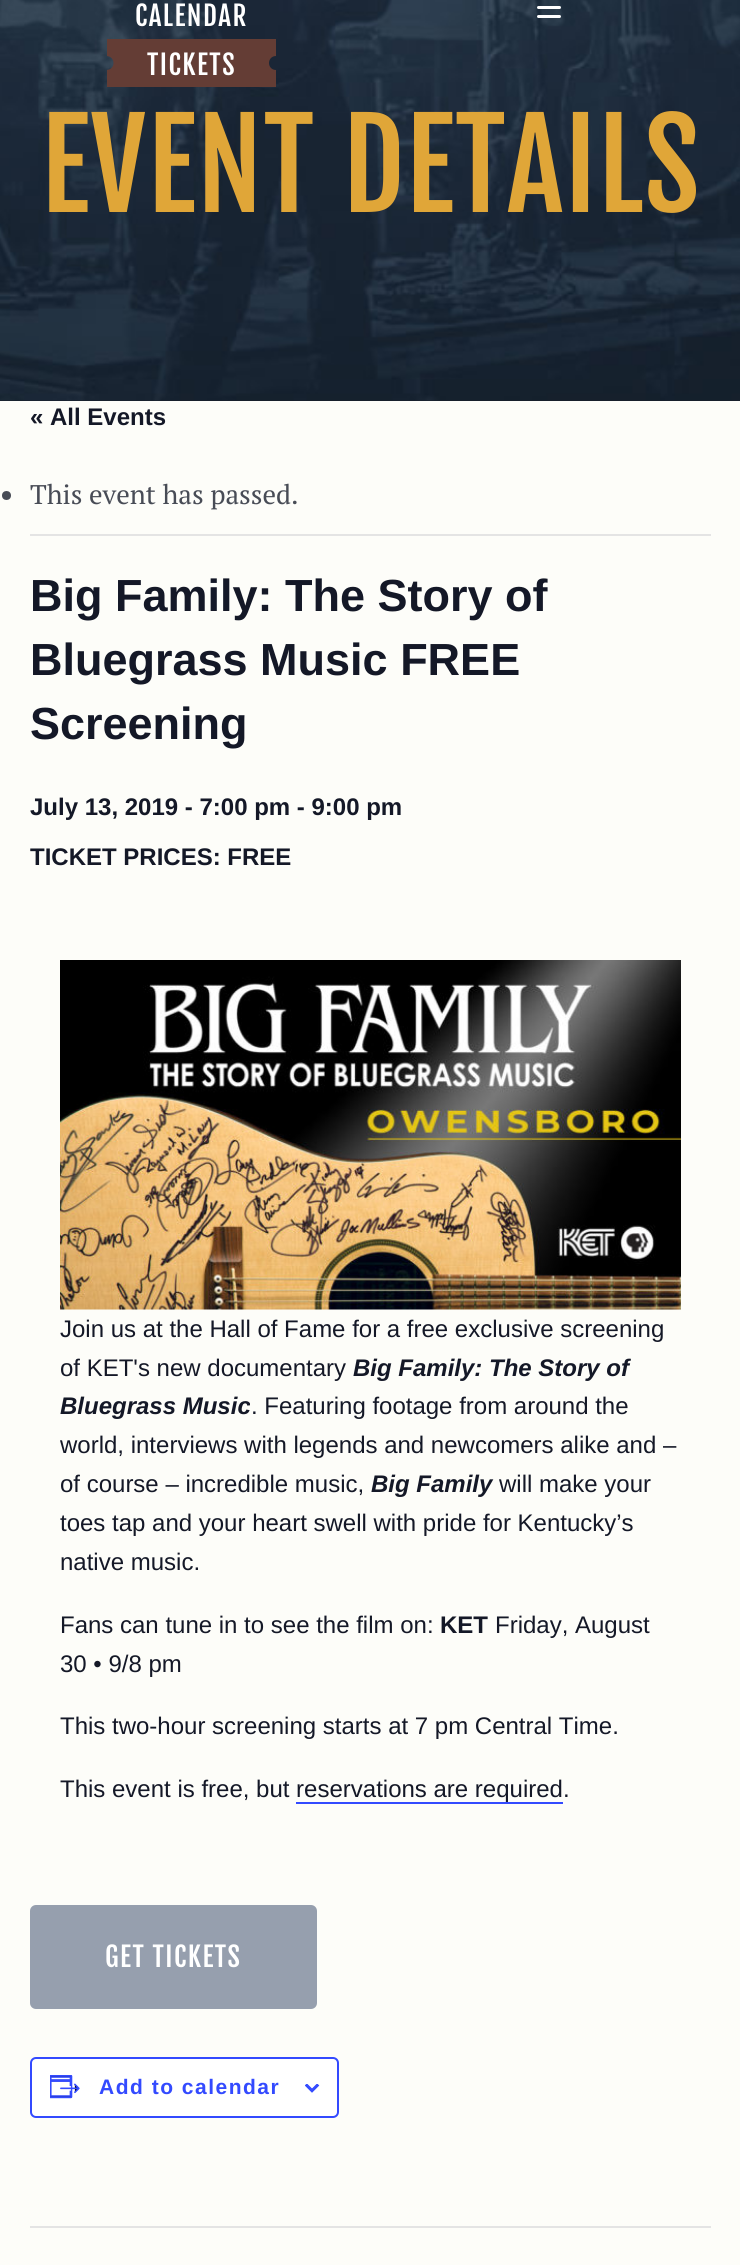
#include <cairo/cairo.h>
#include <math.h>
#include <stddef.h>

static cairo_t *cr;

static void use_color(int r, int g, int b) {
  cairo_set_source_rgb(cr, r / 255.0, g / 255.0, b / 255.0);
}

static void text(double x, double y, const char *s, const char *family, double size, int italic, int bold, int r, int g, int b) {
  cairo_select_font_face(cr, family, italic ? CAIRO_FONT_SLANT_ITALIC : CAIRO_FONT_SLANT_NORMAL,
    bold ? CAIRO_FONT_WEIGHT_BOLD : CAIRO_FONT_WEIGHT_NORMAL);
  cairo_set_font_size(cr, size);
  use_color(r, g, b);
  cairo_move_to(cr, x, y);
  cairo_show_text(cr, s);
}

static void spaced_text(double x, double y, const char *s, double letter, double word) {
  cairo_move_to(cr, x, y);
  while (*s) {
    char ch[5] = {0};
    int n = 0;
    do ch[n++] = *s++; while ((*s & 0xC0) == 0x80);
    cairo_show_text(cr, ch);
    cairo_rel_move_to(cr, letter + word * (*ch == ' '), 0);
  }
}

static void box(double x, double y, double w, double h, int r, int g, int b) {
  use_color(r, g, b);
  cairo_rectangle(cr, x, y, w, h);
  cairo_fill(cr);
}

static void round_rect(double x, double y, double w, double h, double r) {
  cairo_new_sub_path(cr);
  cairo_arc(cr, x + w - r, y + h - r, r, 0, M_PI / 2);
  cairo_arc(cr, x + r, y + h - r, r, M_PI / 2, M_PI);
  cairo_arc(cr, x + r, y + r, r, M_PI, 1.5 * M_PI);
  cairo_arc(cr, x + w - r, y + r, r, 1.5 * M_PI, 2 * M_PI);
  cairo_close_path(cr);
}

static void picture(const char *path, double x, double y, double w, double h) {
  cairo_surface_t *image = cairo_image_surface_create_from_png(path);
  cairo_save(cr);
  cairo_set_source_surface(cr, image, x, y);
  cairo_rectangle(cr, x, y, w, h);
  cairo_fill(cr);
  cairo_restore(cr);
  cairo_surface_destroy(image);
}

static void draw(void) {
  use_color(253, 253, 249);
  cairo_paint(cr);
  box(0, 400, 740, 1, 25, 31, 43);
  picture("img_02.png", 0, 0, 740, 401);
  cairo_save(cr);
  cairo_rectangle(cr, 107, 39, 169, 48);
  cairo_clip(cr);
  use_color(100, 61, 53);
  cairo_new_path(cr);
  cairo_move_to(cr, 269, 63);
  cairo_curve_to(cr, 269, 59, 272, 56, 276, 56);
  cairo_line_to(cr, 276, 39);
  cairo_line_to(cr, 106, 39);
  cairo_line_to(cr, 106, 56);
  cairo_curve_to(cr, 116, 56, 116, 70, 106, 70);
  cairo_line_to(cr, 106, 87);
  cairo_line_to(cr, 276, 87);
  cairo_line_to(cr, 276, 70);
  cairo_curve_to(cr, 272, 70, 269, 67, 269, 63);
  cairo_close_path(cr);
  cairo_fill(cr);
  cairo_restore(cr);
  picture("img_01.png", 537, 6, 24, 12);
  box(30, 534, 681, 2, 228, 228, 228);
  use_color(72, 76, 86);
  cairo_arc(cr, 6.5, 495.5, 4.5, 0, 2 * M_PI);
  cairo_fill(cr);
  picture("img_03.png", 60, 960, 621, 350);
  box(296, 1802, 267, 2, 51, 74, 255);
  use_color(150, 159, 174);
  round_rect(30, 1905, 287, 104, 6);
  cairo_fill(cr);
  use_color(255, 255, 255);
  round_rect(31, 2058, 307, 59, 5);
  cairo_fill_preserve(cr);
  use_color(51, 74, 255);
  cairo_stroke(cr);
  picture("img_04.png", 50, 2075, 30, 24);
  picture("img_05.png", 305, 2084, 15, 9);
  box(30, 2226, 681, 2, 228, 228, 228);
  cairo_select_font_face(cr, "Fjalla One", CAIRO_FONT_SLANT_NORMAL, CAIRO_FONT_WEIGHT_NORMAL);
  cairo_set_font_size(cr, 27);
  use_color(255, 255, 255);
  spaced_text(135, 26, "CALENDAR", 1.5, 0);
  spaced_text(147, 75, "TICKETS", 1.5, 0);
  cairo_set_font_size(cr, 120);
  use_color(224, 166, 56);
  spaced_text(41, 212, "EVENT DETAILS", 1.5, 0);
  text(30, 425, "« All Events", "Liberation Sans", 24, 0, 1, 20, 24, 39);
  text(30, 504, "This event has passed.", "PT Serif", 27, 0, 0, 72, 76, 86);
  text(30, 611, "Big Family: The Story of", "Liberation Sans", 45, 0, 1, 20, 24, 39);
  text(30, 675, "Bluegrass Music FREE", "Liberation Sans", 45, 0, 1, 20, 24, 39);
  text(30, 739, "Screening", "Liberation Sans", 45, 0, 1, 20, 24, 39);
  text(30, 815, "July 13, 2019 - 7:00 pm - 9:00 pm", "Liberation Sans", 24, 0, 1, 20, 24, 39);
  text(30, 865, "TICKET PRICES: FREE", "Liberation Sans", 24, 0, 1, 20, 24, 39);
  text(60, 1337, "Join us at the Hall of Fame for a free exclusive screening", "Liberation Sans", 24, 0, 0, 20, 24, 39);
  text(60, 1376, "of KET's new documentary", "Liberation Sans", 24, 0, 0, 20, 24, 39);
  text(353, 1376, "Big Family: The Story of", "Liberation Sans", 24, 1, 1, 20, 24, 39);
  text(60, 1414, "Bluegrass Music", "Liberation Sans", 24, 1, 1, 20, 24, 39);
  text(251, 1414, ". Featuring footage from around the", "Liberation Sans", 24, 0, 0, 20, 24, 39);
  text(60, 1453, "world, interviews with legends and newcomers alike and –", "Liberation Sans", 24, 0, 0, 20, 24, 39);
  text(60, 1492, "of course – incredible music,", "Liberation Sans", 24, 0, 0, 20, 24, 39);
  text(371, 1492, "Big Family", "Liberation Sans", 24, 1, 1, 20, 24, 39);
  text(499, 1492, "will make your", "Liberation Sans", 24, 0, 0, 20, 24, 39);
  text(60, 1531, "toes tap and your heart swell with pride for Kentucky’s", "Liberation Sans", 24, 0, 0, 20, 24, 39);
  text(60, 1570, "native music.", "Liberation Sans", 24, 0, 0, 20, 24, 39);
  text(60, 1633, "Fans can tune in to see the film on:", "Liberation Sans", 24, 0, 0, 20, 24, 39);
  text(440, 1633, "KET", "Liberation Sans", 24, 0, 1, 20, 24, 39);
  text(495, 1633, "Friday, August", "Liberation Sans", 24, 0, 0, 20, 24, 39);
  text(60, 1672, "30 • 9/8 pm", "Liberation Sans", 24, 0, 0, 20, 24, 39);
  text(60, 1734, "This two-hour screening starts at 7 pm Central Time.", "Liberation Sans", 24, 0, 0, 20, 24, 39);
  text(60, 1797, "This event is free, but reservations are required.", "Liberation Sans", 24, 0, 0, 20, 24, 39);
  cairo_select_font_face(cr, "Fjalla One", CAIRO_FONT_SLANT_NORMAL, CAIRO_FONT_WEIGHT_NORMAL);
  cairo_set_font_size(cr, 27);
  use_color(255, 255, 255);
  spaced_text(105, 1967, "GET TICKETS", 1.5, 0);
  cairo_select_font_face(cr, "Liberation Sans", CAIRO_FONT_SLANT_NORMAL, CAIRO_FONT_WEIGHT_BOLD);
  cairo_set_font_size(cr, 21);
  use_color(51, 74, 255);
  spaced_text(99, 2094, "Add to calendar", 1.5, 0);
}

int main(void) {
  cairo_surface_t *surface = cairo_image_surface_create(CAIRO_FORMAT_RGB24, 740, 2265);
  cr = cairo_create(surface);
  cairo_font_options_t *options = cairo_font_options_create();
  cairo_font_options_set_hint_metrics(options, CAIRO_HINT_METRICS_OFF);
  cairo_font_options_set_hint_style(options, CAIRO_HINT_STYLE_NONE);
  cairo_set_font_options(cr, options);
  cairo_set_miter_limit(cr, 4);
  draw();
  cairo_surface_write_to_png(surface, "out.png");
  cairo_font_options_destroy(options);
  cairo_destroy(cr);
  cairo_surface_destroy(surface);
  return 0;
}
